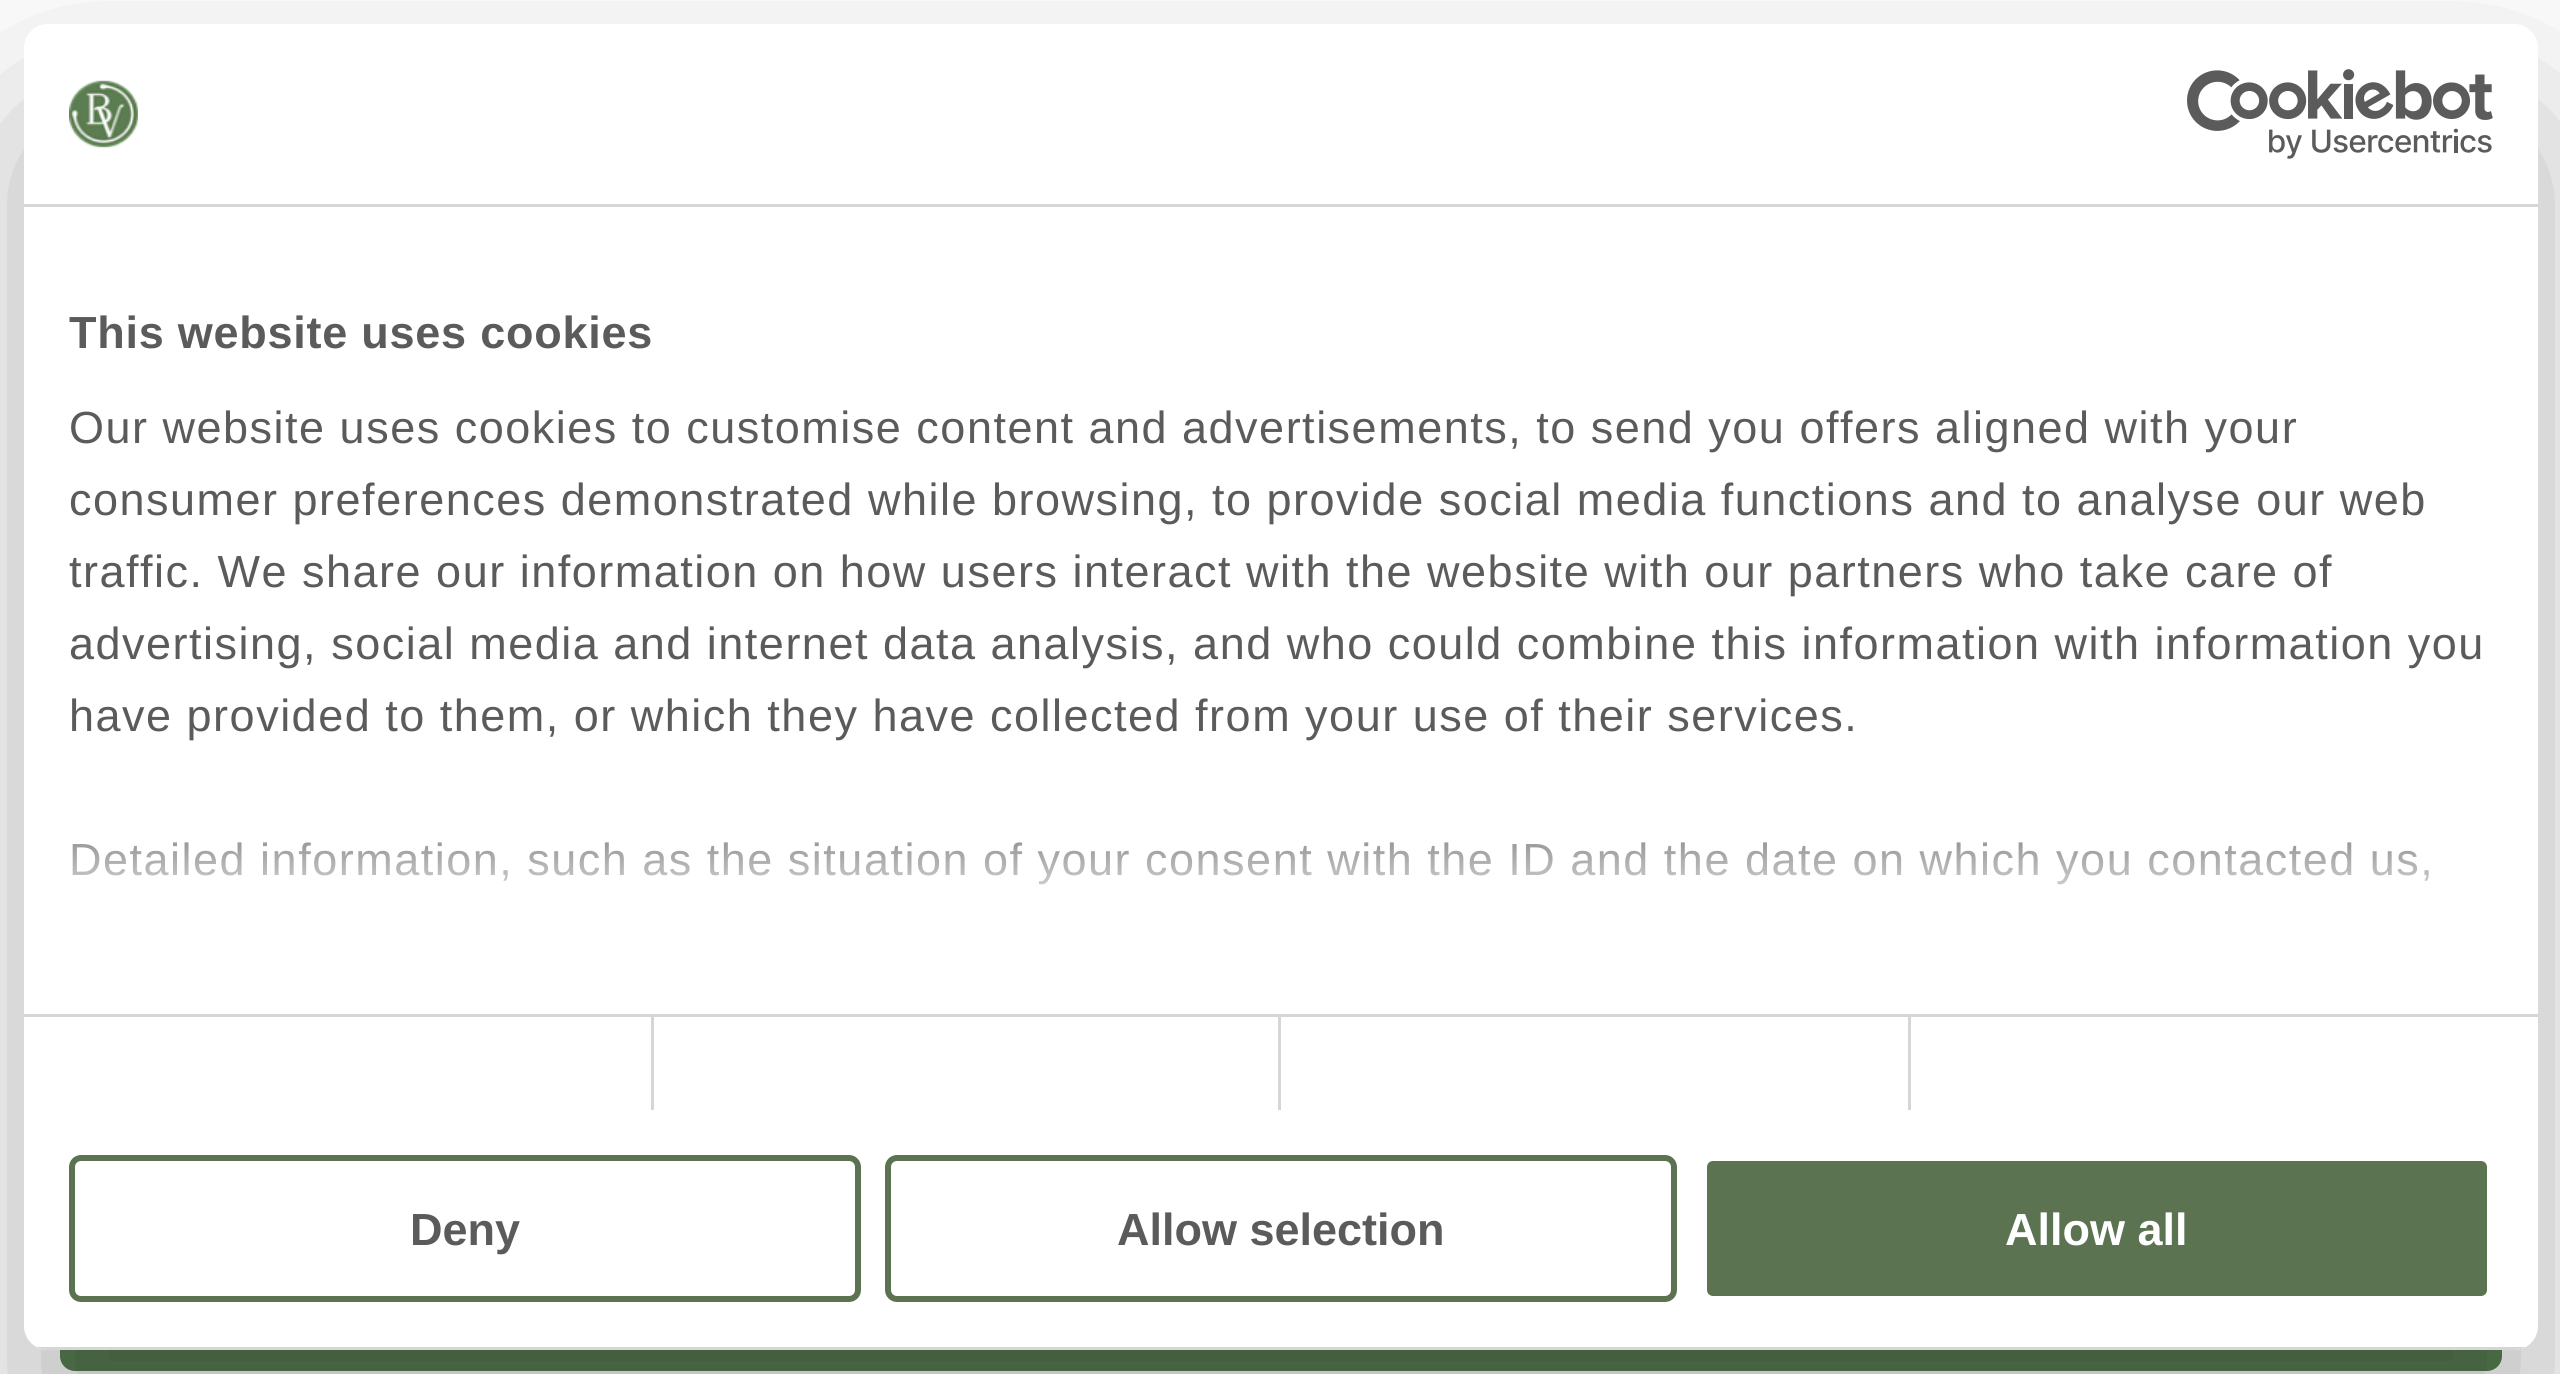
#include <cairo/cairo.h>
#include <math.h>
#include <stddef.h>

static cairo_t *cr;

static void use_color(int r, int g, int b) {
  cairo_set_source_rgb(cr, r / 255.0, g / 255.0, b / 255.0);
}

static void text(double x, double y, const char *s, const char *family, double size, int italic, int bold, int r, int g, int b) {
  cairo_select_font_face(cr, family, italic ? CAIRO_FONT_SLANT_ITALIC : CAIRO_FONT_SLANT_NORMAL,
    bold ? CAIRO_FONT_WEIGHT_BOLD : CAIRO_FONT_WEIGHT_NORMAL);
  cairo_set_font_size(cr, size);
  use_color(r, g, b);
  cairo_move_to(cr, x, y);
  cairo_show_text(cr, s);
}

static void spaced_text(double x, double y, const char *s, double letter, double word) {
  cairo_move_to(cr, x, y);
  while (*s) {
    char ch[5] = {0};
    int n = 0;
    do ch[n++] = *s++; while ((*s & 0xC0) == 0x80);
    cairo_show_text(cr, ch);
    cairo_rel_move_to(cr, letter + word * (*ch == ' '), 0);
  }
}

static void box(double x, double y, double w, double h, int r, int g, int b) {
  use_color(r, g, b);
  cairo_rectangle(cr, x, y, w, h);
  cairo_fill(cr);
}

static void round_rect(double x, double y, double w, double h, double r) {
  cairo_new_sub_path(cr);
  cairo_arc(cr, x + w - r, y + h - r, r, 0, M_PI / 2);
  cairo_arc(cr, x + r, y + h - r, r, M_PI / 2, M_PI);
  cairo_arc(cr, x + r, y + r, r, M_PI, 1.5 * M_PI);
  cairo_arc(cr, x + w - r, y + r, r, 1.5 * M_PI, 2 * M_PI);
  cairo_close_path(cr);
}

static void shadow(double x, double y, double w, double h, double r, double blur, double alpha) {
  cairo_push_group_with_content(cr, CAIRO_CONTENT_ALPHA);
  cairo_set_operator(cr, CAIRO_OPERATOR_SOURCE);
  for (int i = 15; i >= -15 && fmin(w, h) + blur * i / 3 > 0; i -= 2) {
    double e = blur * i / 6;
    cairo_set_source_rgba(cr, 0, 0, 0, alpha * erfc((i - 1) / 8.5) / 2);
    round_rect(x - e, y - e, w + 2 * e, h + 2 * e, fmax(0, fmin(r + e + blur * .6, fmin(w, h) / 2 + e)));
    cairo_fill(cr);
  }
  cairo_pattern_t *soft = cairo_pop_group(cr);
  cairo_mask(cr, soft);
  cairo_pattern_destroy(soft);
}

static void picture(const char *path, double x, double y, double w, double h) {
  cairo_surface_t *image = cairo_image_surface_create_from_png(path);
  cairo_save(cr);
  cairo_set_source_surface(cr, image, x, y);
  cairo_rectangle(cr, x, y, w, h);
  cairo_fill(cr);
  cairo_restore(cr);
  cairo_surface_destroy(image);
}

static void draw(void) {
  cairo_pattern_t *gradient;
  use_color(255, 255, 255);
  cairo_paint(cr);
  use_color(89, 127, 82);
  round_rect(60, 1236, 2442, 135, 15);
  cairo_fill(cr);
  use_color(0, 0, 0);
  shadow(24, 120, 2514, 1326, 24, 102, 0.3);
  use_color(255, 255, 255);
  round_rect(24, 24, 2514, 1326, 24);
  cairo_fill(cr);
  box(24, 204, 2514, 3, 214, 214, 214);
  picture("img_01.png", 69, 80, 69, 69);
  picture("img_02.png", 2187, 69, 306, 90);
  box(24, 1014, 2514, 3, 214, 214, 214);
  box(651, 1017, 3, 93, 214, 214, 214);
  box(1278, 1017, 3, 93, 214, 214, 214);
  box(1908, 1017, 3, 93, 214, 214, 214);
  cairo_save(cr);
  round_rect(24, 24, 2514, 1326, 24);
  cairo_clip(cr);
  box(36, 1347, 2490, 3, 214, 214, 214);
  cairo_restore(cr);
  round_rect(72, 1158, 786, 141, 9);
  use_color(92, 115, 81);
  cairo_set_line_width(cr, 6);
  cairo_stroke(cr);
  round_rect(888, 1158, 786, 141, 9);
  cairo_stroke(cr);
  round_rect(1704, 1158, 786, 141, 9);
  cairo_fill_preserve(cr);
  use_color(255, 255, 255);
  cairo_stroke(cr);
  cairo_select_font_face(cr, "Liberation Sans", CAIRO_FONT_SLANT_NORMAL, CAIRO_FONT_WEIGHT_BOLD);
  cairo_set_font_size(cr, 45);
  use_color(91, 91, 91);
  spaced_text(69, 348, "This website uses cookies", 0.75, 0);
  cairo_select_font_face(cr, "Liberation Sans", CAIRO_FONT_SLANT_NORMAL, CAIRO_FONT_WEIGHT_NORMAL);
  spaced_text(69, 443, "Our website uses cookies to customise content and advertisements, to send you offers aligned with your", 1.5, 0);
  spaced_text(69, 515, "consumer preferences demonstrated while browsing, to provide social media functions and to analyse our web", 1.5, 0);
  spaced_text(69, 587, "traffic. We share our information on how users interact with the website with our partners who take care of", 1.5, 0);
  spaced_text(69, 659, "advertising, social media and internet data analysis, and who could combine this information with information you", 1.5, 0);
  spaced_text(69, 731, "have provided to them, or which they have collected from your use of their services.", 1.5, 0);
  spaced_text(69, 875, "Detailed information, such as the situation of your consent with the ID and the date on which you contacted us,", 1.5, 0);
  gradient = cairo_pattern_create_linear(1262, 1014, 1262, 789);
  cairo_pattern_add_color_stop_rgba(gradient, 0, 1, 1, 1, 1);
  cairo_pattern_add_color_stop_rgba(gradient, 0.5, 1, 1, 1, 0.8);
  cairo_pattern_add_color_stop_rgba(gradient, 1, 1, 1, 1, 0);
  cairo_set_source(cr, gradient);
  cairo_pattern_destroy(gradient);
  cairo_rectangle(cr, 72, 842, 2357, 43);
  cairo_fill(cr);
  text(410, 1245, "Deny", "Liberation Sans", 45, 0, 1, 91, 91, 91);
  text(1117, 1245, "Allow selection", "Liberation Sans", 45, 0, 1, 91, 91, 91);
  text(2005, 1245, "Allow all", "Liberation Sans", 45, 0, 1, 255, 255, 255);
}

int main(void) {
  cairo_surface_t *surface = cairo_image_surface_create(CAIRO_FORMAT_RGB24, 2560, 1374);
  cr = cairo_create(surface);
  cairo_font_options_t *options = cairo_font_options_create();
  cairo_font_options_set_hint_metrics(options, CAIRO_HINT_METRICS_OFF);
  cairo_font_options_set_hint_style(options, CAIRO_HINT_STYLE_NONE);
  cairo_set_font_options(cr, options);
  cairo_set_miter_limit(cr, 4);
  draw();
  cairo_surface_write_to_png(surface, "out.png");
  cairo_font_options_destroy(options);
  cairo_destroy(cr);
  cairo_surface_destroy(surface);
  return 0;
}
